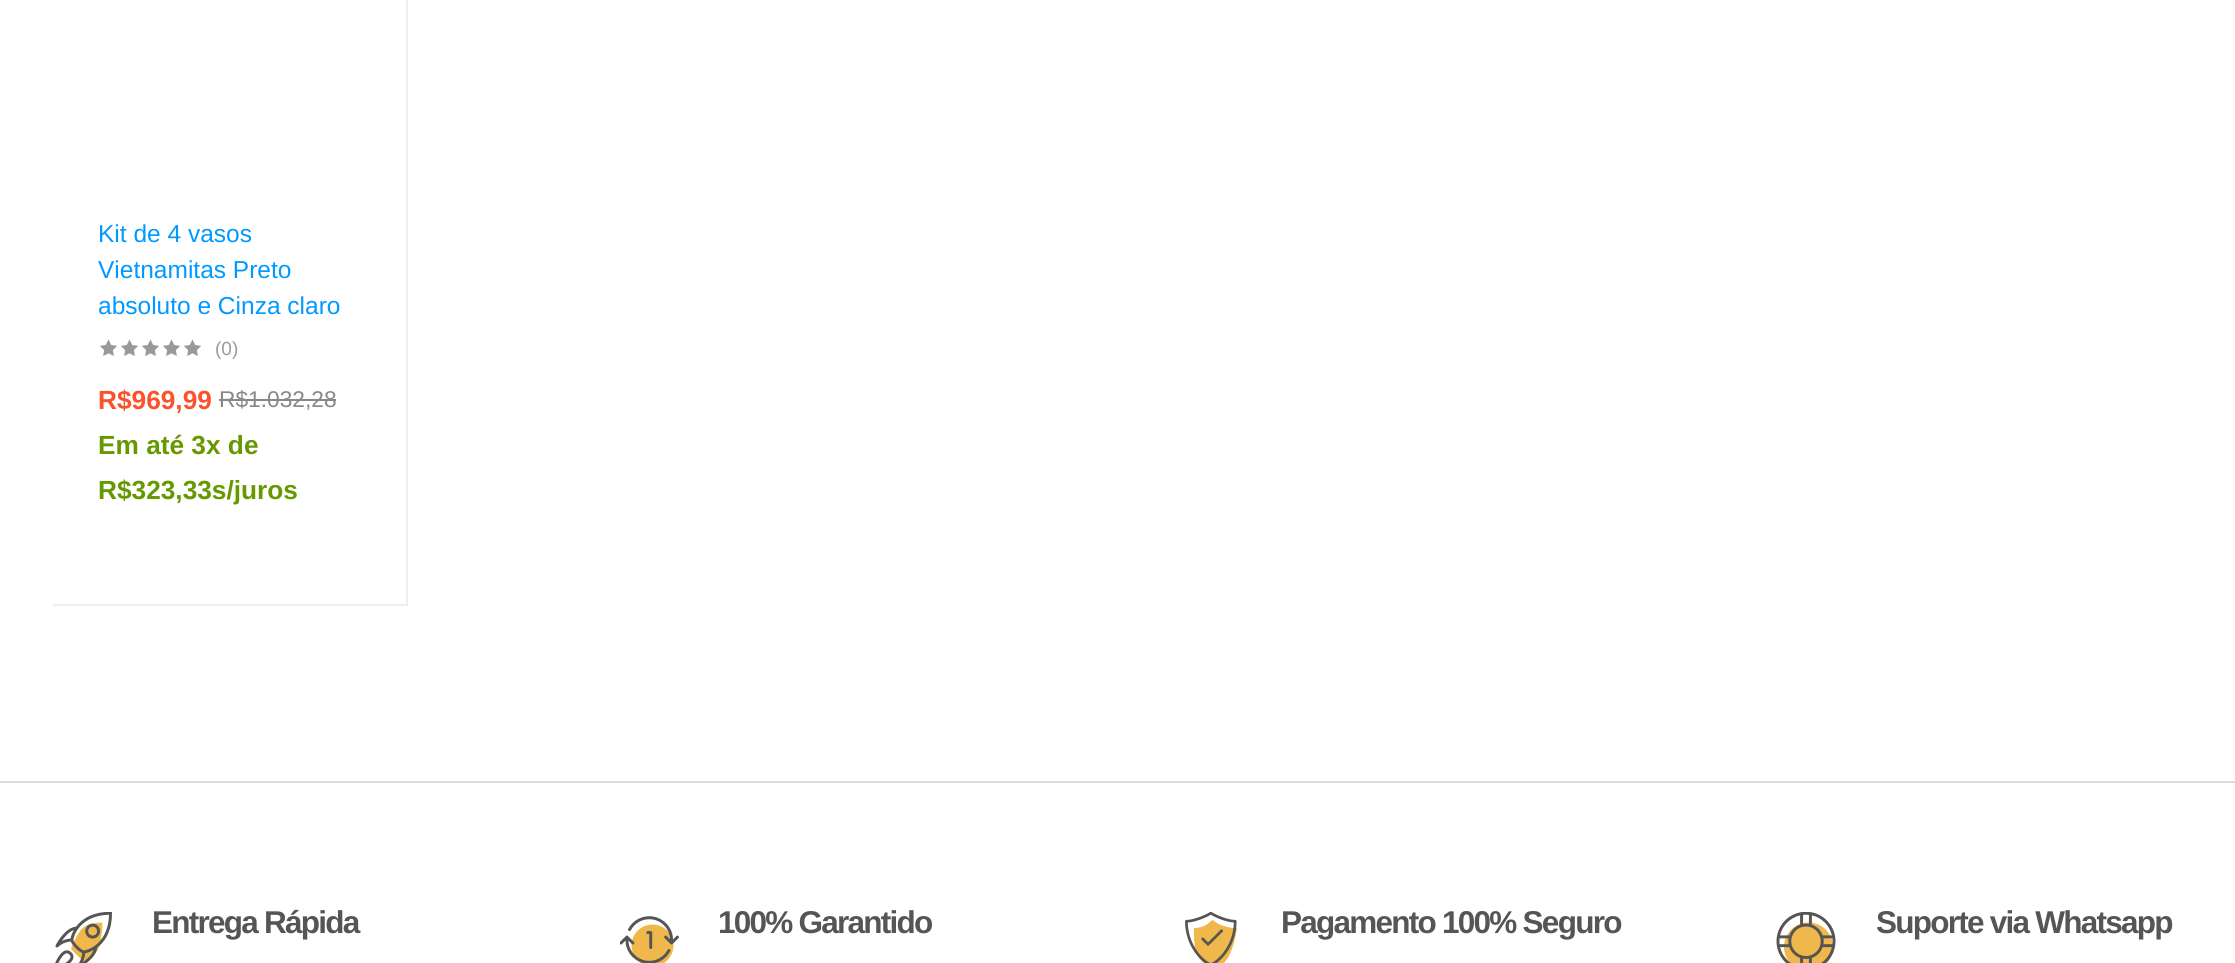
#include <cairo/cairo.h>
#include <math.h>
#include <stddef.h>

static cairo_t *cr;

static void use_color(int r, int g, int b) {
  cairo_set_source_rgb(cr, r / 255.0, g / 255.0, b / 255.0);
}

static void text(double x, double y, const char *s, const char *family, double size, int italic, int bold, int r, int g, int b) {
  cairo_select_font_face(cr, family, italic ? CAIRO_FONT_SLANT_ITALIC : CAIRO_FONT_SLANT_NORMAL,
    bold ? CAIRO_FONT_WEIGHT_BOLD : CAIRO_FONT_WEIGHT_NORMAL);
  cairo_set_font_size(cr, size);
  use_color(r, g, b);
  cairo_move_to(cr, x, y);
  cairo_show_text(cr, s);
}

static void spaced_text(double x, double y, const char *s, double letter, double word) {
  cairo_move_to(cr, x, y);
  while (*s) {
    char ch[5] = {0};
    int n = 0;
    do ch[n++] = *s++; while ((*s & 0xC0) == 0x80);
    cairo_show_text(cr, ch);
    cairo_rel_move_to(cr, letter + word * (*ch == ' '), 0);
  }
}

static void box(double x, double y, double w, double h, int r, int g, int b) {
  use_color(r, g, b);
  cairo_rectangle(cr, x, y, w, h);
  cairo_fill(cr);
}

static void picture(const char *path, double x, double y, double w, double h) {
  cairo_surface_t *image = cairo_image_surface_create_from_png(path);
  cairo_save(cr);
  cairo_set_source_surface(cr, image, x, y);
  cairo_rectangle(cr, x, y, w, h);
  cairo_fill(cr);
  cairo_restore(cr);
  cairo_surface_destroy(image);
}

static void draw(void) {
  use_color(255, 255, 255);
  cairo_paint(cr);
  box(406, 0, 2, 606, 238, 238, 238);
  cairo_new_path(cr);
  cairo_move_to(cr, 408, 606);
  cairo_line_to(cr, 52, 606);
  cairo_line_to(cr, 54, 604);
  cairo_line_to(cr, 406, 604);
  cairo_close_path(cr);
  cairo_fill(cr);
  picture("img_01.png", 100, 339, 17, 17);
  picture("img_01.png", 121, 339, 17, 17);
  picture("img_01.png", 142, 339, 17, 17);
  picture("img_01.png", 163, 339, 17, 17);
  picture("img_01.png", 184, 339, 17, 17);
  box(219, 399, 117, 2, 136, 136, 136);
  box(0, 781, 2235, 2, 220, 220, 220);
  picture("img_02.png", 55, 912, 57, 51);
  picture("img_03.png", 620, 916, 59, 47);
  picture("img_04.png", 1185, 912, 52, 51);
  picture("img_05.png", 1776, 912, 60, 51);
  text(98, 242, "Kit de 4 vasos", "Liberation Sans", 24.5, 0, 0, 0, 153, 255);
  text(98, 278, "Vietnamitas Preto", "Liberation Sans", 24.5, 0, 0, 0, 153, 255);
  text(98, 314, "absoluto e Cinza claro", "Liberation Sans", 24.5, 0, 0, 0, 153, 255);
  text(215, 355, "(0)", "Liberation Sans", 19, 0, 0, 153, 153, 153);
  text(98, 409, "R$969,99", "Liberation Sans", 26.25, 0, 1, 250, 83, 44);
  text(219, 407, "R$1.032,28", "Liberation Sans", 22.75, 0, 0, 136, 136, 136);
  text(98, 454, "Em até 3x de", "Liberation Sans", 26.25, 0, 1, 102, 153, 0);
  text(98, 499, "R$323,33s/juros", "Liberation Sans", 26.25, 0, 1, 102, 153, 0);
  cairo_set_font_size(cr, 31.5);
  use_color(85, 85, 85);
  spaced_text(152, 933, "Entrega Rápida", -1.75, 0);
  spaced_text(718, 933, "100% Garantido", -1.75, 0);
  spaced_text(1281, 933, "Pagamento 100% Seguro", -1.75, 0);
  spaced_text(1876, 933, "Suporte via Whatsapp", -1.75, 0);
}

int main(void) {
  cairo_surface_t *surface = cairo_image_surface_create(CAIRO_FORMAT_RGB24, 2235, 963);
  cr = cairo_create(surface);
  cairo_font_options_t *options = cairo_font_options_create();
  cairo_font_options_set_hint_metrics(options, CAIRO_HINT_METRICS_OFF);
  cairo_font_options_set_hint_style(options, CAIRO_HINT_STYLE_NONE);
  cairo_set_font_options(cr, options);
  cairo_set_miter_limit(cr, 4);
  draw();
  cairo_surface_write_to_png(surface, "out.png");
  cairo_font_options_destroy(options);
  cairo_destroy(cr);
  cairo_surface_destroy(surface);
  return 0;
}
